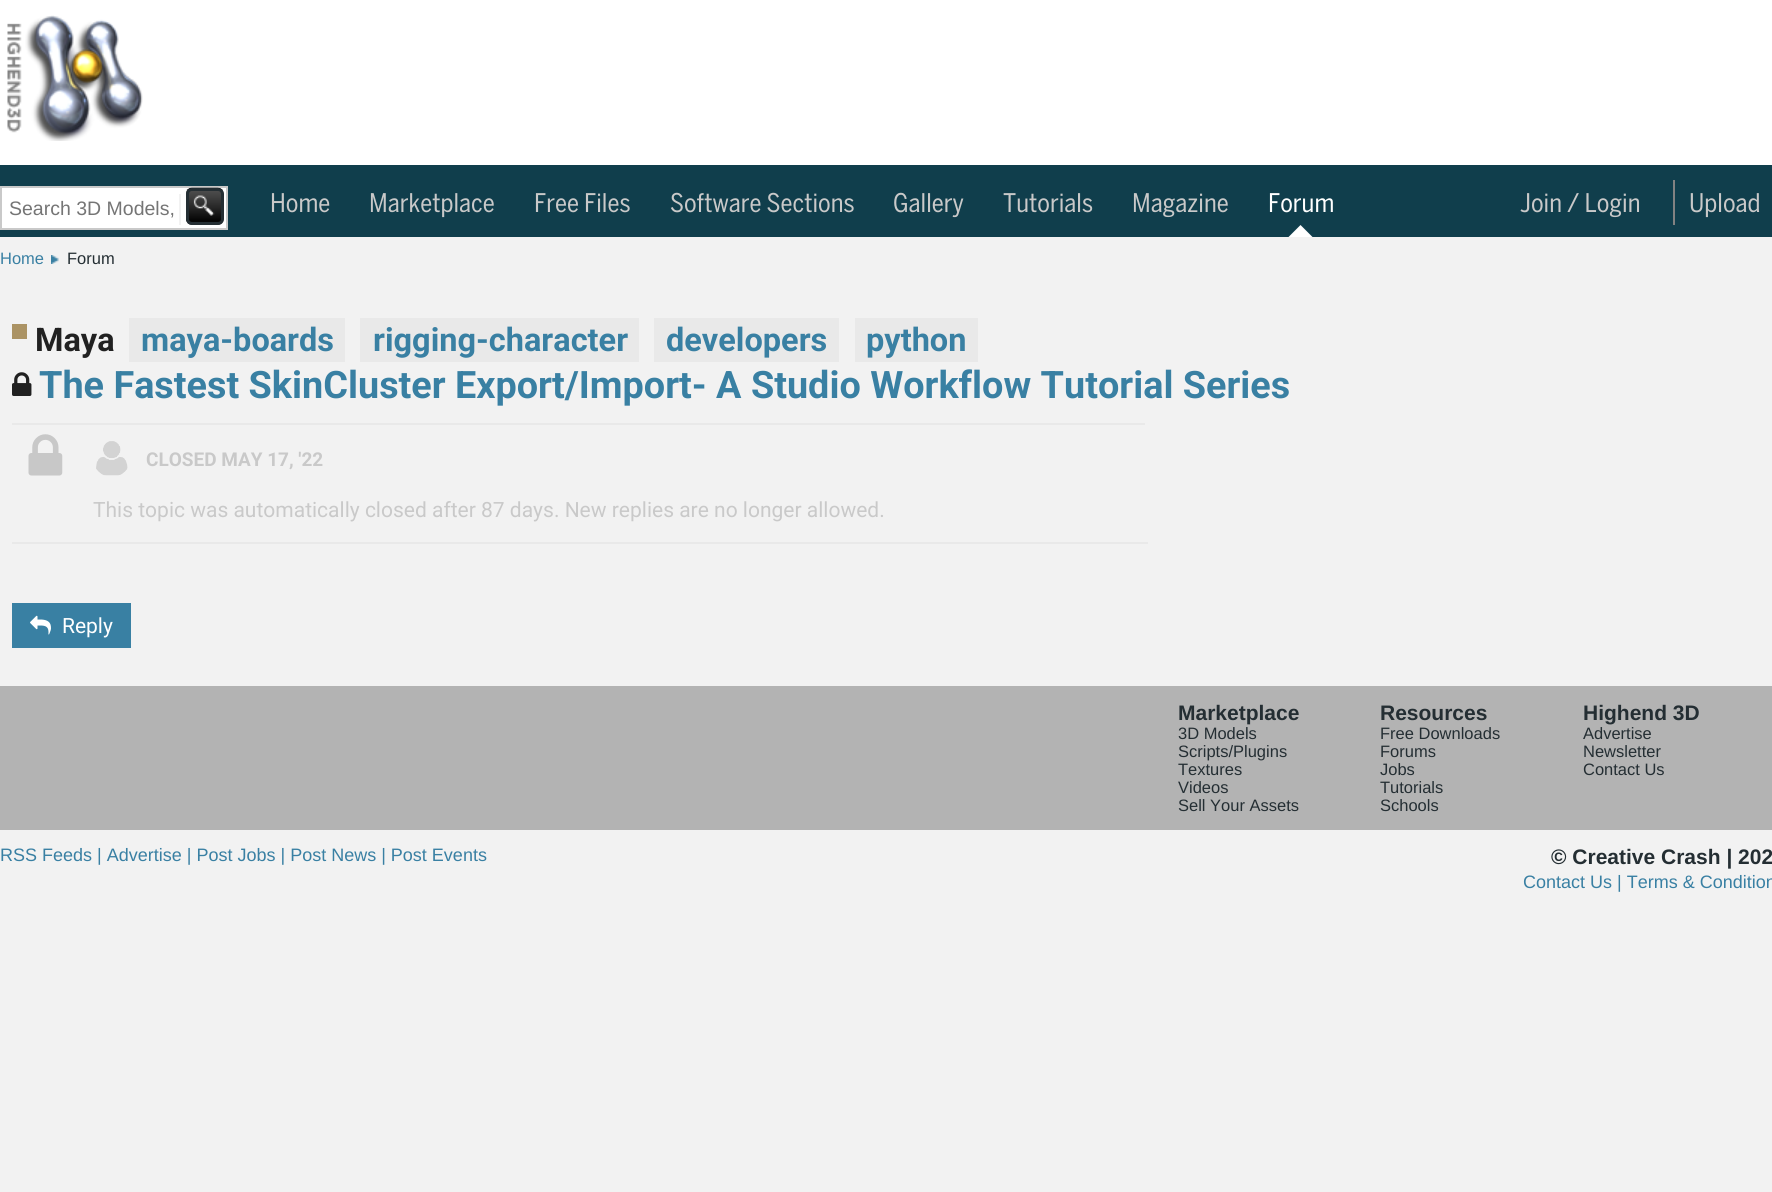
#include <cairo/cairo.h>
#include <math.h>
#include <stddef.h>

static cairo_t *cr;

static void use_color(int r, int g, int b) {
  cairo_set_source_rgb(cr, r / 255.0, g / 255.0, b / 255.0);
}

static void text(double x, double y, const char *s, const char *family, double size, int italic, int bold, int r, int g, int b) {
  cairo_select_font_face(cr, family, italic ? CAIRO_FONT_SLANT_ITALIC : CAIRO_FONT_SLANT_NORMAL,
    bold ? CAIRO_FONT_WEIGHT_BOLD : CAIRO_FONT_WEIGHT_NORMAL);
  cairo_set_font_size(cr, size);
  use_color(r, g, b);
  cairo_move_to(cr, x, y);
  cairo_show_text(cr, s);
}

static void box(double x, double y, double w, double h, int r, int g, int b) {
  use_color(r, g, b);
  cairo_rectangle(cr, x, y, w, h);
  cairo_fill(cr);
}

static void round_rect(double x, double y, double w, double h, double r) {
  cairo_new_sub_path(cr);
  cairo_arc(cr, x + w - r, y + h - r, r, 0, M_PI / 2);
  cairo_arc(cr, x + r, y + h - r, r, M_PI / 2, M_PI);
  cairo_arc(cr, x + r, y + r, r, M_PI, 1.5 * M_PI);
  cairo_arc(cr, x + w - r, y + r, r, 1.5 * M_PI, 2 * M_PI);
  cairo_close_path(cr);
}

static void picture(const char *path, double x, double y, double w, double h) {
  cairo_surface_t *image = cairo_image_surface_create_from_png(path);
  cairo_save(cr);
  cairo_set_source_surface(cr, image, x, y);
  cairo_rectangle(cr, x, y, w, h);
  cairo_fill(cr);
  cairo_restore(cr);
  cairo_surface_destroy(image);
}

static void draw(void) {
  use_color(242, 242, 242);
  cairo_paint(cr);
  box(0, 0, 1772, 165, 255, 255, 255);
  picture("img_01.png", 7, 15, 136, 126);
  box(0, 165, 1772, 72, 16, 62, 76);
  use_color(255, 255, 255);
  cairo_rectangle(cr, 1, 187, 226, 42);
  cairo_fill_preserve(cr);
  use_color(201, 201, 201);
  cairo_stroke(cr);
  box(179, 194, 2, 31, 242, 242, 242);
  picture("img_02.png", 186, 187, 38, 38);
  round_rect(187.5, 189.5, 35, 34, 4.5);
  use_color(36, 46, 51);
  cairo_set_line_width(cr, 3);
  cairo_stroke(cr);
  use_color(255, 255, 255);
  cairo_new_path(cr);
  cairo_move_to(cr, 1312.5, 237);
  cairo_line_to(cr, 1288.5, 237);
  cairo_line_to(cr, 1300.5, 225);
  cairo_close_path(cr);
  cairo_fill(cr);
  box(1673, 180, 2, 45, 130, 130, 130);
  picture("img_03.png", 51, 255, 8, 9);
  box(12, 324, 15, 15, 171, 147, 100);
  box(129, 318, 216, 44, 233, 233, 233);
  box(360, 318, 279, 44, 233, 233, 233);
  box(654, 318, 185, 44, 233, 233, 233);
  box(855, 318, 123, 44, 233, 233, 233);
  picture("img_04.png", 12, 372, 20, 24);
  box(12, 423, 1133, 2, 233, 233, 233);
  picture("img_05.png", 28, 434, 35, 42);
  picture("img_06.png", 96, 441, 32, 35);
  box(12, 542, 1136, 2, 233, 233, 233);
  box(12, 603, 119, 45, 57, 128, 163);
  picture("img_07.png", 30, 615, 21, 20);
  box(0, 686, 1772, 144, 179, 179, 179);
  text(9, 215, "Search 3D Models,", "Liberation Sans", 19.5, 0, 0, 117, 117, 117);
  text(270, 212, "Home", "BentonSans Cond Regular", 25.5, 0, 0, 201, 201, 201);
  text(369, 212, "Marketplace", "BentonSans Cond Regular", 25.5, 0, 0, 201, 201, 201);
  text(534, 212, "Free Files", "BentonSans Cond Regular", 25.5, 0, 0, 201, 201, 201);
  text(670, 212, "Software Sections", "BentonSans Cond Regular", 25.5, 0, 0, 201, 201, 201);
  text(893, 212, "Gallery", "BentonSans Cond Regular", 25.5, 0, 0, 201, 201, 201);
  text(1003, 212, "Tutorials", "BentonSans Cond Regular", 25.5, 0, 0, 201, 201, 201);
  text(1132, 212, "Magazine", "BentonSans Cond Regular", 25.5, 0, 0, 201, 201, 201);
  text(1268, 212, "Forum", "BentonSans Cond Regular", 25.5, 0, 0, 255, 255, 255);
  text(1520, 212, "Join / Login", "BentonSans Cond Regular", 25.5, 0, 0, 201, 201, 201);
  text(1689, 212, "Upload", "BentonSans Cond Regular", 25.5, 0, 0, 201, 201, 201);
  text(0, 264, "Home", "Liberation Sans", 16.5, 0, 0, 57, 128, 163);
  text(67, 264, "Forum", "Liberation Sans", 16.5, 0, 0, 36, 46, 51);
  text(35, 351, "Maya", "Roboto", 32.5, 0, 1, 33, 33, 33);
  text(141, 351, "maya-boards", "Roboto", 32.5, 0, 1, 57, 128, 163);
  text(373, 351, "rigging-character", "Roboto", 32.5, 0, 1, 57, 128, 163);
  text(666, 351, "developers", "Roboto", 32.5, 0, 1, 57, 128, 163);
  text(866, 351, "python", "Roboto", 32.5, 0, 1, 57, 128, 163);
  text(39, 398, "The Fastest SkinCluster Export/Import- A Studio Workflow Tutorial Series", "Roboto", 37.8, 0, 1, 57, 128, 163);
  text(146, 466, "CLOSED MAY 17, '22", "Roboto", 19, 0, 1, 201, 201, 201);
  text(93, 517, "This topic was automatically closed after 87 days. New replies are no longer allowed.", "Roboto", 21, 0, 0, 201, 201, 201);
  text(62, 633, "Reply", "Roboto", 21, 0, 0, 255, 255, 255);
  text(1178, 720, "Marketplace", "Liberation Sans", 21, 0, 1, 36, 46, 51);
  text(1178, 739, "3D Models", "Liberation Sans", 16.5, 0, 0, 36, 46, 51);
  text(1178, 757, "Scripts/Plugins", "Liberation Sans", 16.5, 0, 0, 36, 46, 51);
  text(1178, 775, "Textures", "Liberation Sans", 16.5, 0, 0, 36, 46, 51);
  text(1178, 793, "Videos", "Liberation Sans", 16.5, 0, 0, 36, 46, 51);
  text(1178, 811, "Sell Your Assets", "Liberation Sans", 16.5, 0, 0, 36, 46, 51);
  text(1380, 720, "Resources", "Liberation Sans", 21, 0, 1, 36, 46, 51);
  text(1380, 739, "Free Downloads", "Liberation Sans", 16.5, 0, 0, 36, 46, 51);
  text(1380, 757, "Forums", "Liberation Sans", 16.5, 0, 0, 36, 46, 51);
  text(1380, 775, "Jobs", "Liberation Sans", 16.5, 0, 0, 36, 46, 51);
  text(1380, 793, "Tutorials", "Liberation Sans", 16.5, 0, 0, 36, 46, 51);
  text(1380, 811, "Schools", "Liberation Sans", 16.5, 0, 0, 36, 46, 51);
  text(1583, 720, "Highend 3D", "Liberation Sans", 21, 0, 1, 36, 46, 51);
  text(1583, 739, "Advertise", "Liberation Sans", 16.5, 0, 0, 36, 46, 51);
  text(1583, 757, "Newsletter", "Liberation Sans", 16.5, 0, 0, 36, 46, 51);
  text(1583, 775, "Contact Us", "Liberation Sans", 16.5, 0, 0, 36, 46, 51);
  text(0, 861, "RSS Feeds | Advertise | Post Jobs | Post News | Post Events", "Liberation Sans", 18, 0, 0, 57, 128, 163);
  text(1551, 864, "© Creative Crash | 202", "Liberation Sans", 21, 0, 1, 36, 46, 51);
  text(1523, 888, "Contact Us | Terms & Condition", "Liberation Sans", 18, 0, 0, 57, 128, 163);
}

int main(void) {
  cairo_surface_t *surface = cairo_image_surface_create(CAIRO_FORMAT_RGB24, 1772, 1192);
  cr = cairo_create(surface);
  cairo_font_options_t *options = cairo_font_options_create();
  cairo_font_options_set_hint_metrics(options, CAIRO_HINT_METRICS_OFF);
  cairo_font_options_set_hint_style(options, CAIRO_HINT_STYLE_NONE);
  cairo_set_font_options(cr, options);
  cairo_set_miter_limit(cr, 4);
  draw();
  cairo_surface_write_to_png(surface, "out.png");
  cairo_font_options_destroy(options);
  cairo_destroy(cr);
  cairo_surface_destroy(surface);
  return 0;
}
